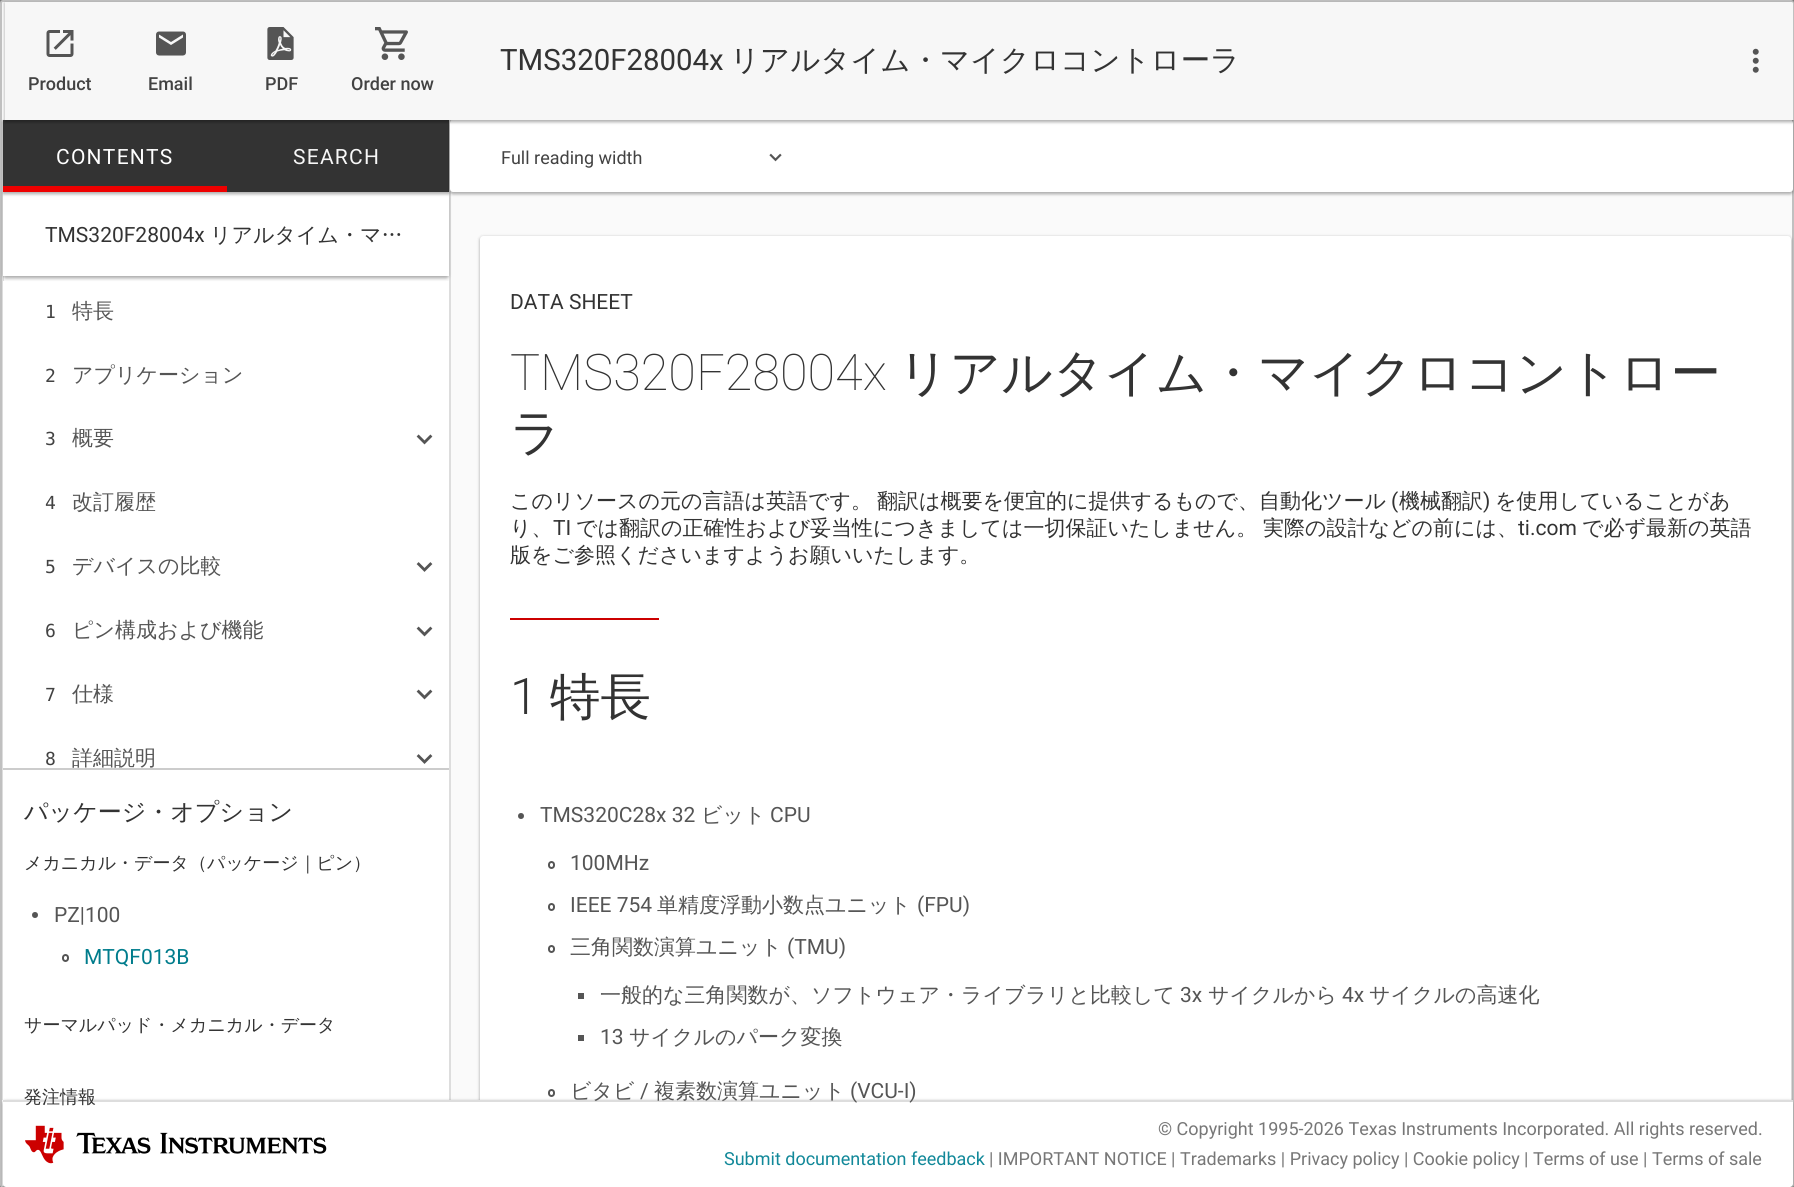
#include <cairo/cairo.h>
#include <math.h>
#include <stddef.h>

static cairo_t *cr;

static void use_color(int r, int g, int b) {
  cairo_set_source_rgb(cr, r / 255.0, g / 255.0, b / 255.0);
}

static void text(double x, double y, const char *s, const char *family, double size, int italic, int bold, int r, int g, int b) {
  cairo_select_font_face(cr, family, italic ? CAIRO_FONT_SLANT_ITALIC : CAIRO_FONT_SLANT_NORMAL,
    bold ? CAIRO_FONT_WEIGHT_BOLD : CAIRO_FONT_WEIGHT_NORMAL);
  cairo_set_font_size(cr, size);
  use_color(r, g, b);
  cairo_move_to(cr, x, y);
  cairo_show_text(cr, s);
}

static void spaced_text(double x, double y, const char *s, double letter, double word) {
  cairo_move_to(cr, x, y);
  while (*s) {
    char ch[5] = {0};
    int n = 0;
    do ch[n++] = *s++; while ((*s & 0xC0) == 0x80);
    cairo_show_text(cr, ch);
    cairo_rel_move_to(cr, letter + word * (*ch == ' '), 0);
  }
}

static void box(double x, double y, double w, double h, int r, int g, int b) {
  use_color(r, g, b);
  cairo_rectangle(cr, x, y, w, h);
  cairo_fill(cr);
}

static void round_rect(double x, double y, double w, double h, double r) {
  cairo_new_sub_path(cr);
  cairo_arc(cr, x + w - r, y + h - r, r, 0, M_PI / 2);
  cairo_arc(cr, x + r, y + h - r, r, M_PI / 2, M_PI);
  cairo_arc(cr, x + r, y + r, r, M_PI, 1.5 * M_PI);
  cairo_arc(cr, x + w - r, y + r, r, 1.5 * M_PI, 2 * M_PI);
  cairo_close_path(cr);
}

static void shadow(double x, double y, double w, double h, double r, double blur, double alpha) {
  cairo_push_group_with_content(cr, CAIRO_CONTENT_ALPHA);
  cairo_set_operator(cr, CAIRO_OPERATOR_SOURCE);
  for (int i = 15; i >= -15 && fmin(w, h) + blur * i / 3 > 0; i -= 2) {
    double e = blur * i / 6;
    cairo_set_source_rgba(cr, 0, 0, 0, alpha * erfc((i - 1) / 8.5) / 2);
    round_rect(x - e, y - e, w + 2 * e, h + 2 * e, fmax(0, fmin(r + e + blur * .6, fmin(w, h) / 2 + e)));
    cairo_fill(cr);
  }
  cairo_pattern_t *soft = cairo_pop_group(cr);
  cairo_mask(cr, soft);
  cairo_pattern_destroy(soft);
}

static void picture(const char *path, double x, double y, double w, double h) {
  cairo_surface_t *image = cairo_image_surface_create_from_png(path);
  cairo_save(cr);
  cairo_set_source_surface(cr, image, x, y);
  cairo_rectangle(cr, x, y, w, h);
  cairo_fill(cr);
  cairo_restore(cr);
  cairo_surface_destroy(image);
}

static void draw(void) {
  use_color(128, 128, 128);
  cairo_paint(cr);
  use_color(0, 0, 0);
  shadow(0, 26, 1794, 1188, 3, 37.5, 0.19);
  shadow(0, 18, 1794, 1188, 3, 11, 0.24);
  use_color(250, 250, 250);
  round_rect(1, 1, 1792, 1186, 2);
  cairo_fill_preserve(cr);
  use_color(192, 192, 192);
  cairo_stroke(cr);
  box(449, 120, 2, 980, 221, 221, 221);
  box(2, 120, 2, 980, 221, 221, 221);
  box(3, 281, 446, 487, 255, 255, 255);
  use_color(0, 0, 0);
  shadow(3, 194, 446, 84, 3, 1.5, 0.24);
  cairo_save(cr);
  cairo_rectangle(cr, 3, 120, 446, 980);
  cairo_clip(cr);
  shadow(3, 194, 446, 84, 3, 2, 0.12);
  cairo_restore(cr);
  box(3, 192, 446, 84, 255, 255, 255);
  use_color(0, 0, 0);
  shadow(3, 122, 446, 72, 0, 1.5, 0.24);
  cairo_save(cr);
  round_rect(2, 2, 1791, 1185, 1.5);
  cairo_clip(cr);
  shadow(3, 122, 446, 72, 0, 2, 0.12);
  cairo_restore(cr);
  box(3, 120, 446, 72, 51, 51, 51);
  use_color(0, 0, 0);
  shadow(450, 122, 1343, 72, 3, 1.5, 0.24);
  shadow(450, 122, 1343, 72, 3, 2, 0.12);
  use_color(255, 255, 255);
  round_rect(450, 120, 1343, 72, 3);
  cairo_fill(cr);
  cairo_save(cr);
  cairo_set_fill_rule(cr, CAIRO_FILL_RULE_EVEN_ODD);
  cairo_new_path(cr);
  cairo_move_to(cr, 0, 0);
  cairo_line_to(cr, 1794, 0);
  cairo_line_to(cr, 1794, 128);
  cairo_line_to(cr, 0, 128);
  cairo_close_path(cr);
  cairo_move_to(cr, 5, 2);
  cairo_line_to(cr, 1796, 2);
  cairo_line_to(cr, 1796, 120);
  cairo_line_to(cr, 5, 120);
  cairo_close_path(cr);
  cairo_clip(cr);
  use_color(0, 0, 0);
  shadow(5, 3, 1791, 119, 0, 1.5, 0.24);
  cairo_restore(cr);
  cairo_save(cr);
  cairo_rectangle(cr, 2, 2, 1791, 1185);
  cairo_clip(cr);
  use_color(0, 0, 0);
  shadow(5, 3, 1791, 119, 0, 2, 0.12);
  cairo_restore(cr);
  use_color(247, 247, 247);
  cairo_new_path(cr);
  cairo_move_to(cr, 5, 2);
  cairo_line_to(cr, 1791.5, 2);
  cairo_curve_to(cr, 1792.5, 2, 1793, 2.5, 1793, 3.5);
  cairo_line_to(cr, 1793, 120);
  cairo_line_to(cr, 5, 120);
  cairo_close_path(cr);
  cairo_fill(cr);
  picture("img_01.png", 1752, 48, 7, 25);
  picture("img_02.png", 46, 30, 28, 27);
  picture("img_03.png", 156, 31, 30, 25);
  picture("img_04.png", 267, 27, 27, 33);
  picture("img_05.png", 375, 27, 33, 33);
  box(3, 186, 224, 6, 238, 0, 0);
  picture("img_06.png", 416, 434, 17, 11);
  picture("img_07.png", 416, 562, 17, 10);
  picture("img_06.png", 416, 626, 17, 11);
  picture("img_06.png", 416, 689, 17, 11);
  picture("img_07.png", 416, 754, 17, 10);
  box(3, 770, 446, 330, 255, 255, 255);
  box(3, 768, 446, 2, 204, 204, 204);
  use_color(85, 85, 85);
  cairo_arc(cr, 35, 915, 3, 0, 2 * M_PI);
  cairo_fill(cr);
  round_rect(63, 955, 5, 6, 2.5);
  cairo_stroke(cr);
  picture("img_08.png", 769, 153, 13, 9);
  use_color(0, 0, 0);
  shadow(480, 237, 1311, 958, 3, 1.5, 0.24);
  cairo_save(cr);
  round_rect(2, 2, 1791, 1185, 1.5);
  cairo_clip(cr);
  shadow(480, 237, 1311, 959, 3, 2, 0.12);
  cairo_restore(cr);
  use_color(255, 255, 255);
  cairo_new_path(cr);
  cairo_move_to(cr, 483, 236);
  cairo_line_to(cr, 1788, 236);
  cairo_curve_to(cr, 1789.5, 236, 1791, 237.5, 1791, 239);
  cairo_line_to(cr, 1791, 1100);
  cairo_line_to(cr, 480, 1100);
  cairo_line_to(cr, 480, 239);
  cairo_curve_to(cr, 480, 237.5, 481.5, 236, 483, 236);
  cairo_close_path(cr);
  cairo_fill(cr);
  box(510, 618, 149, 2, 204, 0, 0);
  use_color(85, 85, 85);
  cairo_arc(cr, 521, 816, 3, 0, 2 * M_PI);
  cairo_fill(cr);
  round_rect(549, 862, 5, 6, 2.5);
  cairo_stroke(cr);
  round_rect(549, 904, 5, 6, 2.5);
  cairo_stroke(cr);
  round_rect(549, 946, 5, 6, 2.5);
  cairo_stroke(cr);
  box(578, 993, 6, 6, 85, 85, 85);
  box(578, 1035, 6, 6, 85, 85, 85);
  round_rect(549, 1090, 5, 6, 2.5);
  cairo_stroke(cr);
  use_color(0, 0, 0);
  shadow(3, 1101, 1790, 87, 3, 1.5, 0.24);
  cairo_save(cr);
  cairo_rectangle(cr, 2, 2, 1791, 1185);
  cairo_clip(cr);
  shadow(3, 1101, 1790, 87, 3, 2, 0.12);
  cairo_restore(cr);
  use_color(255, 255, 255);
  cairo_new_path(cr);
  cairo_move_to(cr, 3, 1100);
  cairo_line_to(cr, 1793, 1100);
  cairo_line_to(cr, 1793, 1184);
  cairo_curve_to(cr, 1793, 1185.5, 1791.5, 1187, 1790, 1187);
  cairo_line_to(cr, 6, 1187);
  cairo_curve_to(cr, 4.5, 1187, 3, 1185.5, 3, 1184);
  cairo_close_path(cr);
  cairo_fill(cr);
  box(3, 1100, 1790, 2, 221, 221, 221);
  picture("img_09.png", 25, 1125, 302, 39);
  text(500, 70, "TMS320F28004x", "Roboto", 29.4, 0, 0, 51, 51, 51);
  text(730, 70, "リアルタイム・マイクロコントローラ", "WenQuanYi Zen Hei Medium", 29.4, 0, 0, 51, 51, 51);
  text(28, 90, "Product", "Roboto Medium", 18, 0, 0, 66, 66, 66);
  text(148, 90, "Email", "Roboto Medium", 18, 0, 0, 66, 66, 66);
  text(265, 90, "PDF", "Roboto Medium", 18, 0, 0, 66, 66, 66);
  text(351, 90, "Order now", "Roboto Medium", 18, 0, 0, 66, 66, 66);
  cairo_select_font_face(cr, "Roboto", CAIRO_FONT_SLANT_NORMAL, CAIRO_FONT_WEIGHT_NORMAL);
  cairo_set_font_size(cr, 21);
  use_color(255, 255, 255);
  spaced_text(56, 164, "CONTENTS", 1.25, 0);
  use_color(247, 247, 247);
  spaced_text(293, 164, "SEARCH", 1.25, 0);
  text(45, 242, "TMS320F28004x", "Roboto", 21, 0, 0, 51, 51, 51);
  text(210, 242, "リアルタイム・マ…", "WenQuanYi Zen Hei Medium", 21, 0, 0, 51, 51, 51);
  text(45, 318, "1", "DejaVu Sans Mono", 18, 0, 0, 66, 66, 66);
  text(72, 318, "特長", "WenQuanYi Zen Hei Medium", 21, 0, 0, 85, 85, 85);
  text(45, 382, "2", "DejaVu Sans Mono", 18, 0, 0, 66, 66, 66);
  text(72, 382, "アプリケーション", "WenQuanYi Zen Hei Medium", 21, 0, 0, 85, 85, 85);
  text(45, 445, "3", "DejaVu Sans Mono", 18, 0, 0, 66, 66, 66);
  text(72, 445, "概要", "WenQuanYi Zen Hei Medium", 21, 0, 0, 85, 85, 85);
  text(45, 509, "4", "DejaVu Sans Mono", 18, 0, 0, 66, 66, 66);
  text(72, 509, "改訂履歴", "WenQuanYi Zen Hei Medium", 21, 0, 0, 85, 85, 85);
  text(45, 573, "5", "DejaVu Sans Mono", 18, 0, 0, 66, 66, 66);
  text(72, 573, "デバイスの比較", "WenQuanYi Zen Hei Medium", 21, 0, 0, 85, 85, 85);
  text(45, 637, "6", "DejaVu Sans Mono", 18, 0, 0, 66, 66, 66);
  text(72, 637, "ピン構成および機能", "WenQuanYi Zen Hei Medium", 21, 0, 0, 85, 85, 85);
  text(45, 701, "7", "DejaVu Sans Mono", 18, 0, 0, 66, 66, 66);
  text(72, 701, "仕様", "WenQuanYi Zen Hei Medium", 21, 0, 0, 85, 85, 85);
  text(45, 765, "8", "DejaVu Sans Mono", 18, 0, 0, 66, 66, 66);
  text(72, 765, "詳細説明", "WenQuanYi Zen Hei Medium", 21, 0, 0, 85, 85, 85);
  text(24, 820, "パッケージ・オプション", "WenQuanYi Zen Hei Medium", 24, 0, 0, 51, 51, 51);
  text(24, 869, "メカニカル・データ（パッケージ｜ピン）", "WenQuanYi Zen Hei Medium", 18, 0, 0, 51, 51, 51);
  text(54, 922, "PZ|100", "Roboto", 21, 0, 0, 85, 85, 85);
  text(84, 964, "MTQF013B", "Roboto", 21, 0, 0, 0, 124, 140);
  text(24, 1031, "サーマルパッド・メカニカル・データ", "WenQuanYi Zen Hei Medium", 18, 0, 0, 51, 51, 51);
  text(24, 1103, "発注情報", "WenQuanYi Zen Hei Medium", 18, 0, 0, 51, 51, 51);
  text(501, 164, "Full reading width", "Roboto", 18, 0, 0, 66, 66, 66);
  text(510, 309, "DATA SHEET", "Roboto", 21, 0, 0, 51, 51, 51);
  text(510, 390, "TMS320F28004x", "Roboto Thin", 50.4, 0, 0, 51, 51, 51);
  text(898, 390, "リアルタイム・マイクロコントロー", "WenQuanYi Zen Hei Medium", 50.4, 0, 0, 51, 51, 51);
  text(510, 450, "ラ", "WenQuanYi Zen Hei Medium", 50.4, 0, 0, 51, 51, 51);
  text(510, 508, "このリソースの元の言語は英語です。", "WenQuanYi Zen Hei Medium", 21, 0, 0, 51, 51, 51);
  text(877, 508, "翻訳は概要を便宜的に提供するもので、自動化ツール", "WenQuanYi Zen Hei Medium", 21, 0, 0, 51, 51, 51);
  text(1391, 508, "(", "Roboto", 21, 0, 0, 51, 51, 51);
  text(1399, 508, "機械翻訳", "WenQuanYi Zen Hei Medium", 21, 0, 0, 51, 51, 51);
  text(1483, 508, ")", "Roboto", 21, 0, 0, 51, 51, 51);
  text(1495, 508, "を使用していることがあ", "WenQuanYi Zen Hei Medium", 21, 0, 0, 51, 51, 51);
  text(510, 535, "り、", "WenQuanYi Zen Hei Medium", 21, 0, 0, 51, 51, 51);
  text(553, 535, "TI", "Roboto", 21, 0, 0, 51, 51, 51);
  text(576, 535, "では翻訳の正確性および妥当性につきましては一切保証いたしません。", "WenQuanYi Zen Hei Medium", 21, 0, 0, 51, 51, 51);
  text(1263, 535, "実際の設計などの前には、", "WenQuanYi Zen Hei Medium", 21, 0, 0, 51, 51, 51);
  text(1518, 535, "ti.com", "Roboto", 21, 0, 0, 51, 51, 51);
  text(1582, 535, "で必ず最新の英語", "WenQuanYi Zen Hei Medium", 21, 0, 0, 51, 51, 51);
  text(510, 562, "版をご参照くださいますようお願いいたします。", "WenQuanYi Zen Hei Medium", 21, 0, 0, 51, 51, 51);
  text(510, 714, "1", "Roboto Light", 50.4, 0, 0, 51, 51, 51);
  text(550, 714, "特長", "WenQuanYi Zen Hei Medium", 50.4, 0, 0, 51, 51, 51);
  text(540, 822, "TMS320C28x 32", "Roboto", 21, 0, 0, 85, 85, 85);
  text(701, 822, "ビット", "WenQuanYi Zen Hei Medium", 21, 0, 0, 85, 85, 85);
  text(770, 822, "CPU", "Roboto", 21, 0, 0, 85, 85, 85);
  text(570, 870, "100MHz", "Roboto", 21, 0, 0, 85, 85, 85);
  text(570, 912, "IEEE 754", "Roboto", 21, 0, 0, 85, 85, 85);
  text(657, 912, "単精度浮動小数点ユニット", "WenQuanYi Zen Hei Medium", 21, 0, 0, 85, 85, 85);
  text(917, 912, "(FPU)", "Roboto", 21, 0, 0, 85, 85, 85);
  text(570, 954, "三角関数演算ユニット", "WenQuanYi Zen Hei Medium", 21, 0, 0, 85, 85, 85);
  text(787, 954, "(TMU)", "Roboto", 21, 0, 0, 85, 85, 85);
  text(600, 1002, "一般的な三角関数が、ソフトウェア・ライブラリと比較して", "WenQuanYi Zen Hei Medium", 21, 0, 0, 85, 85, 85);
  text(1180, 1002, "3x", "Roboto", 21, 0, 0, 85, 85, 85);
  text(1208, 1002, "サイクルから", "WenQuanYi Zen Hei Medium", 21, 0, 0, 85, 85, 85);
  text(1342, 1002, "4x", "Roboto", 21, 0, 0, 85, 85, 85);
  text(1369, 1002, "サイクルの高速化", "WenQuanYi Zen Hei Medium", 21, 0, 0, 85, 85, 85);
  text(600, 1044, "13", "Roboto", 21, 0, 0, 85, 85, 85);
  text(629, 1044, "サイクルのパーク変換", "WenQuanYi Zen Hei Medium", 21, 0, 0, 85, 85, 85);
  text(570, 1098, "ビタビ", "WenQuanYi Zen Hei Medium", 21, 0, 0, 85, 85, 85);
  text(640, 1098, "/", "Roboto", 21, 0, 0, 85, 85, 85);
  text(654, 1098, "複素数演算ユニット", "WenQuanYi Zen Hei Medium", 21, 0, 0, 85, 85, 85);
  text(850, 1098, "(VCU-I)", "Roboto", 21, 0, 0, 85, 85, 85);
  text(1158, 1135, "© Copyright 1995-2026 Texas Instruments Incorporated. All rights reserved.", "Roboto", 18, 0, 0, 119, 119, 119);
  text(724, 1165, "Submit documentation feedback", "Roboto", 18, 0, 0, 17, 136, 153);
  text(989, 1165, "| IMPORTANT NOTICE | Trademarks | Privacy policy | Cookie policy | Terms of use | Terms of sale", "Roboto", 18, 0, 0, 119, 119, 119);
}

int main(void) {
  cairo_surface_t *surface = cairo_image_surface_create(CAIRO_FORMAT_RGB24, 1794, 1187);
  cr = cairo_create(surface);
  cairo_font_options_t *options = cairo_font_options_create();
  cairo_font_options_set_hint_metrics(options, CAIRO_HINT_METRICS_OFF);
  cairo_font_options_set_hint_style(options, CAIRO_HINT_STYLE_NONE);
  cairo_set_font_options(cr, options);
  cairo_set_miter_limit(cr, 4);
  draw();
  cairo_surface_write_to_png(surface, "out.png");
  cairo_font_options_destroy(options);
  cairo_destroy(cr);
  cairo_surface_destroy(surface);
  return 0;
}
